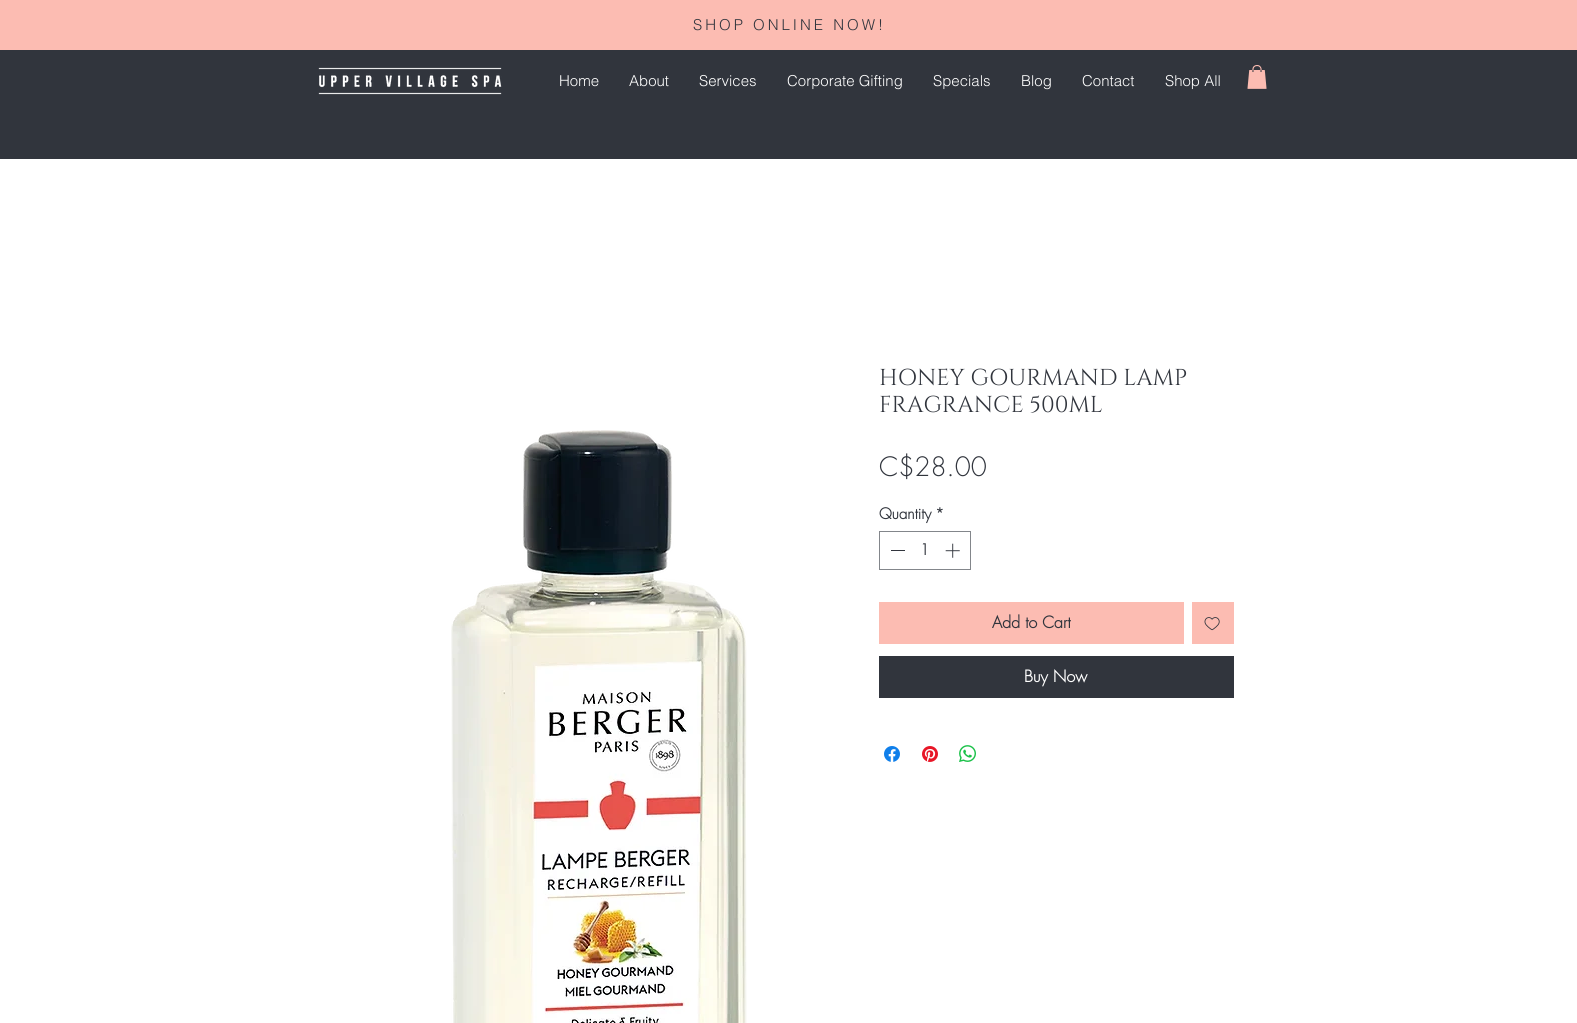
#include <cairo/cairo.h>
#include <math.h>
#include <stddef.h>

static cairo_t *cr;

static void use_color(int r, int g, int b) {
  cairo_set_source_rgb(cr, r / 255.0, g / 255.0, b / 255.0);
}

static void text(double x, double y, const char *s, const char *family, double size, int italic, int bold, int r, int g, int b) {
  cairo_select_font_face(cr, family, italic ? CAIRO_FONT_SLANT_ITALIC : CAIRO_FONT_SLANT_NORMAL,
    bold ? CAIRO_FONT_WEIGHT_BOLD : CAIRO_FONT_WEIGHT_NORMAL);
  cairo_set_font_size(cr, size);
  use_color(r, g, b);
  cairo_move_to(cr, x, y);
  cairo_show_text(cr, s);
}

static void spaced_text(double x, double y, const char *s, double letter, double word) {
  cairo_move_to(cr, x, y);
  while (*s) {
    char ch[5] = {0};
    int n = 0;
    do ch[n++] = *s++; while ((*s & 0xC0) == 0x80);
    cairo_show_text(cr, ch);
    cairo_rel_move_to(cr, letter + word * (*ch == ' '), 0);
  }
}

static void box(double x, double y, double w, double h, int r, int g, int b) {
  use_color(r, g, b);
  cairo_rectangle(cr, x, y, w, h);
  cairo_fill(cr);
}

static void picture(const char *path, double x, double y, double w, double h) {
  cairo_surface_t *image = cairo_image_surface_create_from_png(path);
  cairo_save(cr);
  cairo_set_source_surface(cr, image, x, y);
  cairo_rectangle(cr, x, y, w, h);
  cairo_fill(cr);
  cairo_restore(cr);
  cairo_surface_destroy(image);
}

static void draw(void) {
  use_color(255, 255, 255);
  cairo_paint(cr);
  box(0, 0, 1577, 50, 252, 188, 178);
  box(0, 50, 1577, 109, 49, 53, 61);
  picture("img_01.png", 318, 67, 184, 28);
  picture("img_02.png", 1247, 65, 20, 24);
  picture("img_03.png", 451, 430, 296, 593);
  cairo_rectangle(cr, 879.5, 531.5, 91, 38);
  use_color(131, 134, 139);
  cairo_set_line_width(cr, 1);
  cairo_stroke(cr);
  box(891, 550, 14, 1, 49, 53, 61);
  picture("img_04.png", 945, 543, 15, 15);
  box(879, 602, 305, 42, 252, 188, 178);
  box(1192, 602, 42, 42, 252, 188, 178);
  picture("img_05.png", 1204, 617, 16, 14);
  box(879, 656, 355, 42, 49, 53, 61);
  picture("img_06.png", 884, 746, 16, 16);
  picture("img_07.png", 922, 746, 16, 16);
  picture("img_08.png", 959, 745, 17, 17);
  cairo_select_font_face(cr, "helvetica Light", CAIRO_FONT_SLANT_NORMAL, CAIRO_FONT_WEIGHT_NORMAL);
  cairo_set_font_size(cr, 15);
  spaced_text(693, 30, "SHOP ONLINE NOW!", 3, 0);
  text(559, 86, "Home", "helvetica Light", 15, 0, 0, 255, 255, 255);
  text(629, 86, "About", "helvetica Light", 15, 0, 0, 255, 255, 255);
  text(699, 86, "Services", "helvetica Light", 15, 0, 0, 255, 255, 255);
  text(787, 86, "Corporate Gifting", "helvetica Light", 15, 0, 0, 255, 255, 255);
  text(933, 86, "Specials", "helvetica Light", 15, 0, 0, 255, 255, 255);
  text(1021, 86, "Blog", "helvetica Light", 15, 0, 0, 255, 255, 255);
  text(1082, 86, "Contact", "helvetica Light", 15, 0, 0, 255, 255, 255);
  text(1165, 86, "Shop All", "helvetica Light", 15, 0, 0, 255, 255, 255);
  text(879, 385, "HONEY GOURMAND LAMP", "Cinzel", 23, 0, 0, 49, 53, 61);
  text(879, 412, "FRAGRANCE 500ML", "Cinzel", 23, 0, 0, 49, 53, 61);
  text(879, 476, "C$28.00", "futura Light", 26, 0, 0, 49, 53, 61);
  text(879, 519, "Quantity", "futura", 15, 0, 1, 49, 53, 61);
  text(935, 519, "*", "futura", 15, 0, 1, 49, 53, 61);
  text(920, 555, "1", "futura", 15, 0, 1, 49, 53, 61);
  text(992, 628, "Add to Cart", "futura", 16, 0, 1, 49, 53, 61);
  text(1024, 682, "Buy Now", "futura", 16, 0, 1, 255, 255, 255);
}

int main(void) {
  cairo_surface_t *surface = cairo_image_surface_create(CAIRO_FORMAT_RGB24, 1577, 1023);
  cr = cairo_create(surface);
  cairo_font_options_t *options = cairo_font_options_create();
  cairo_font_options_set_hint_metrics(options, CAIRO_HINT_METRICS_OFF);
  cairo_font_options_set_hint_style(options, CAIRO_HINT_STYLE_NONE);
  cairo_set_font_options(cr, options);
  cairo_set_miter_limit(cr, 4);
  draw();
  cairo_surface_write_to_png(surface, "out.png");
  cairo_font_options_destroy(options);
  cairo_destroy(cr);
  cairo_surface_destroy(surface);
  return 0;
}
